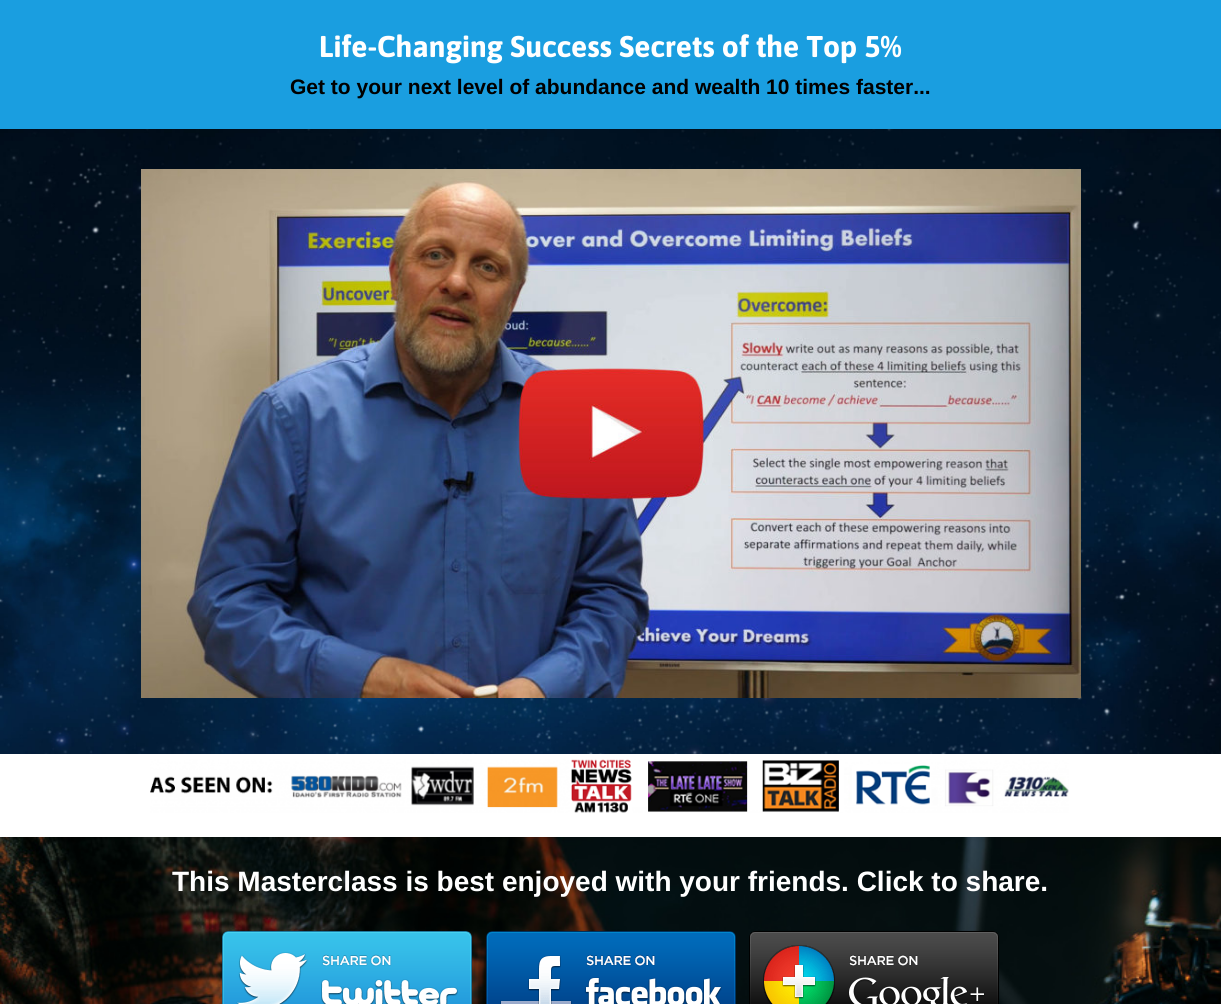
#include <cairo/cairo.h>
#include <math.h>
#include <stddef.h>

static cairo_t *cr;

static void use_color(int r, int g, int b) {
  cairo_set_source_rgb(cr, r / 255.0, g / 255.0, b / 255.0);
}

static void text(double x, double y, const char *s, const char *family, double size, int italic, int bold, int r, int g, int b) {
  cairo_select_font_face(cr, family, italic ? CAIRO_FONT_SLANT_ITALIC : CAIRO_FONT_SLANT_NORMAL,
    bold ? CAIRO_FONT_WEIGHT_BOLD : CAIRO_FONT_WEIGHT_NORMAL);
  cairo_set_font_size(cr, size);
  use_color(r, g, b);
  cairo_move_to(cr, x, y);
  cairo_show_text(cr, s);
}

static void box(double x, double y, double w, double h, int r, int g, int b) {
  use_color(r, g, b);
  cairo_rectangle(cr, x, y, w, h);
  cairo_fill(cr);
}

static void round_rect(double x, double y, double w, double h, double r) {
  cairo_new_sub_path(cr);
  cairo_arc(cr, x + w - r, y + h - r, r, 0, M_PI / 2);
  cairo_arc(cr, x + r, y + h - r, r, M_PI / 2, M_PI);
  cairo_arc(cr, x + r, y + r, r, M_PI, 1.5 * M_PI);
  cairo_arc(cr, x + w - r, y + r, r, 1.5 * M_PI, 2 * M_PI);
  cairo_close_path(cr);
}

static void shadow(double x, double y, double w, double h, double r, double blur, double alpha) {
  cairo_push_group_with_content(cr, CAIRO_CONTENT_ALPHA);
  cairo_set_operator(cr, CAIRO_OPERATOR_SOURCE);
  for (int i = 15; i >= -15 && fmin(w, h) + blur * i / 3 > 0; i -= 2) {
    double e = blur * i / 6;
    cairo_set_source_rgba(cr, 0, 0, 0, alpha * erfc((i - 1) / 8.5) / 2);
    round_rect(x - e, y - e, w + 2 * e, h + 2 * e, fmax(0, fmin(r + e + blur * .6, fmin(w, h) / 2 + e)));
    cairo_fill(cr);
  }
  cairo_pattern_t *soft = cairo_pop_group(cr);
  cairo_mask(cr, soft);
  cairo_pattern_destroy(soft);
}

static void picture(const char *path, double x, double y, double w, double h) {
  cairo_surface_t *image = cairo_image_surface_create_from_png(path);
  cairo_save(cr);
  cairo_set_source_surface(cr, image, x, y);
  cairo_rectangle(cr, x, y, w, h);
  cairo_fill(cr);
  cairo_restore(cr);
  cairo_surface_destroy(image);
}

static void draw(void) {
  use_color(255, 255, 255);
  cairo_paint(cr);
  box(0, 0, 1221, 129, 26, 158, 224);
  picture("img_01.png", 0, 129, 1221, 625);
  picture("img_02.png", 141, 169, 940, 529);
  picture("img_03.png", 150, 759, 919, 54);
  picture("img_04.png", 0, 837, 1221, 167);
  use_color(0, 0, 0);
  shadow(222, 932, 250, 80, 6, 0.5, 0.2);
  picture("img_05.png", 222, 931, 250, 73);
  picture("img_06.png", 486, 931, 250, 73);
  picture("img_07.png", 749, 931, 250, 73);
  text(319, 57, "Life-Changing Success Secrets of the Top 5%", "Asap", 30, 0, 1, 255, 255, 255);
  text(290, 94, "Get to your next level of abundance and wealth 10 times faster...", "Liberation Sans", 21, 0, 1, 0, 0, 0);
  text(172, 891, "This Masterclass is best enjoyed with your friends. Click to share.", "Liberation Sans", 28, 0, 1, 255, 255, 255);
}

int main(void) {
  cairo_surface_t *surface = cairo_image_surface_create(CAIRO_FORMAT_RGB24, 1221, 1004);
  cr = cairo_create(surface);
  cairo_font_options_t *options = cairo_font_options_create();
  cairo_font_options_set_hint_metrics(options, CAIRO_HINT_METRICS_OFF);
  cairo_font_options_set_hint_style(options, CAIRO_HINT_STYLE_NONE);
  cairo_set_font_options(cr, options);
  cairo_set_miter_limit(cr, 4);
  draw();
  cairo_surface_write_to_png(surface, "out.png");
  cairo_font_options_destroy(options);
  cairo_destroy(cr);
  cairo_surface_destroy(surface);
  return 0;
}
